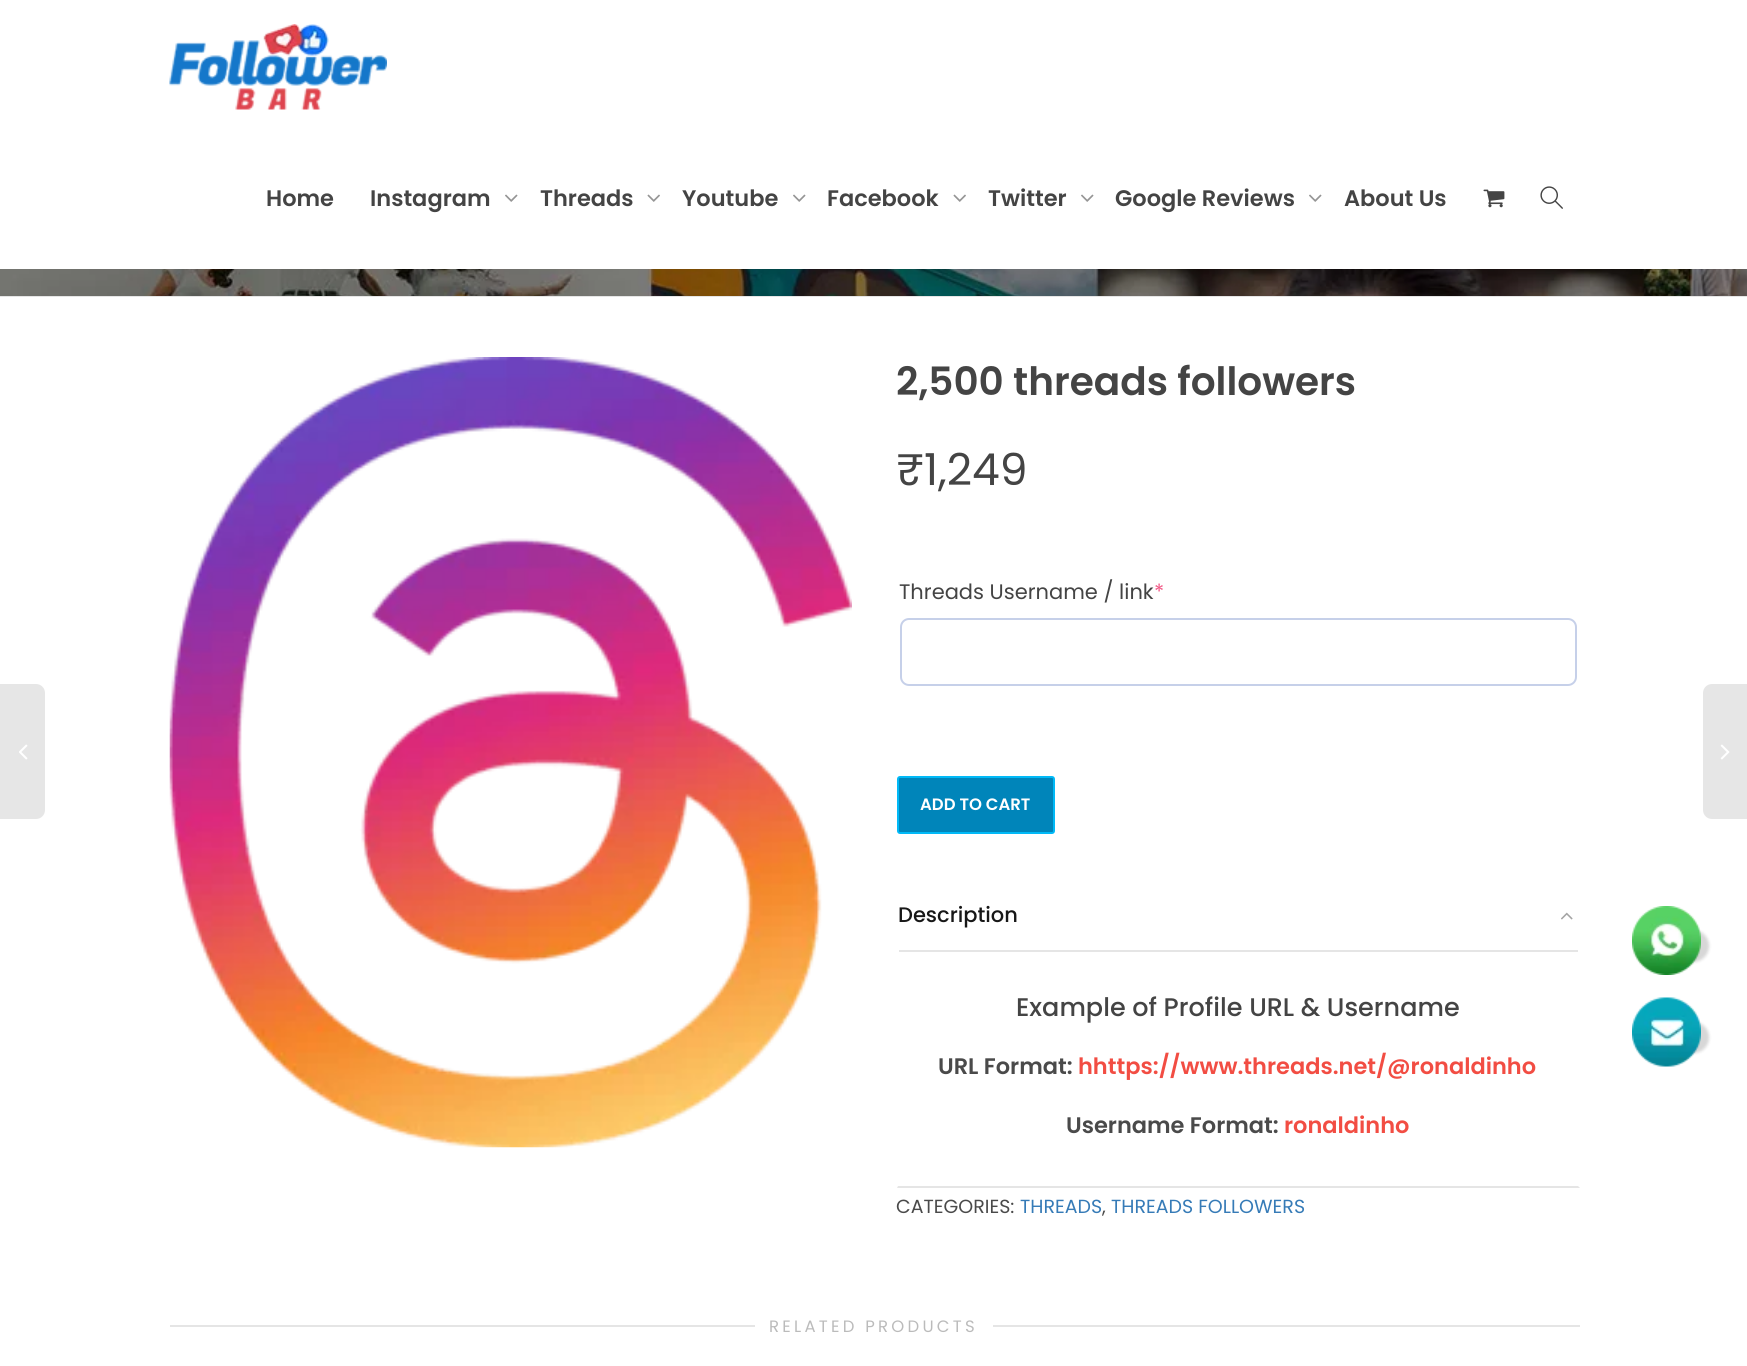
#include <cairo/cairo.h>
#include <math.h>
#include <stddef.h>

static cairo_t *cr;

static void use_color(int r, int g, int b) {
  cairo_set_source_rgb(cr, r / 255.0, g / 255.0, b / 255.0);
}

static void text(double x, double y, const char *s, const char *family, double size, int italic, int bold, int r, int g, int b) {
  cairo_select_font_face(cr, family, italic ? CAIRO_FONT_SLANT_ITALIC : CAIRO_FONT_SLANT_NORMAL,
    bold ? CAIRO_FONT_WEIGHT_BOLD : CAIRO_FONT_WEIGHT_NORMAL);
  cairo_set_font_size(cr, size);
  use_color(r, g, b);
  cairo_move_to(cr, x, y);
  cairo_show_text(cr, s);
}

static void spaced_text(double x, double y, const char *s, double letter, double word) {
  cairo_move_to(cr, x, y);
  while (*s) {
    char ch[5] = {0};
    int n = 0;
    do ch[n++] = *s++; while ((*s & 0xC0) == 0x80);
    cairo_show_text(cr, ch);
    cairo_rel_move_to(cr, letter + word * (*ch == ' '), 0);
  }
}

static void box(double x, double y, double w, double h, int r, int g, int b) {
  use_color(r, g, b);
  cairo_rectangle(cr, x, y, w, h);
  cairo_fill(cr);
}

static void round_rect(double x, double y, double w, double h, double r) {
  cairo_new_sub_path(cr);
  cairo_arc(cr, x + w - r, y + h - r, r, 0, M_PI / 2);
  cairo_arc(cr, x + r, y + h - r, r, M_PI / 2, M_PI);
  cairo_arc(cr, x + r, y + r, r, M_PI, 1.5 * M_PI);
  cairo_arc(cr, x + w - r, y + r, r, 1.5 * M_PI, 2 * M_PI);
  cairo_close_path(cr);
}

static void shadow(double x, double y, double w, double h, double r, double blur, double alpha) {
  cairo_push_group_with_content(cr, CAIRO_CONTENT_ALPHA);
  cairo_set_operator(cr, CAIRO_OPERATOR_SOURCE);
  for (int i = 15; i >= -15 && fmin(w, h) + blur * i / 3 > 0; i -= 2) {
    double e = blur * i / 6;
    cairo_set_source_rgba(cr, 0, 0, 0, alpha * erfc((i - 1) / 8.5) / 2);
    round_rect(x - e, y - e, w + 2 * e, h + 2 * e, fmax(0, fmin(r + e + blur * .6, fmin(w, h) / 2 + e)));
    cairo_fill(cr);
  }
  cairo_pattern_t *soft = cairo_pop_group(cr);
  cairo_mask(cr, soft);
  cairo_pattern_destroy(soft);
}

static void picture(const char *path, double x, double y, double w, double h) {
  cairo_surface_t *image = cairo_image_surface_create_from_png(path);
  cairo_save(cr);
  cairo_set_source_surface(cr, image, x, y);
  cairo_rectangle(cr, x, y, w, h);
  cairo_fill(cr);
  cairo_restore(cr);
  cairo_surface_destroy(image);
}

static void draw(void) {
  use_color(255, 255, 255);
  cairo_paint(cr);
  picture("img_01.png", 169, 24, 218, 86);
  picture("img_02.png", 505, 194, 13, 8);
  picture("img_03.png", 647, 194, 13, 8);
  picture("img_02.png", 793, 194, 13, 8);
  picture("img_03.png", 953, 194, 13, 8);
  picture("img_02.png", 1081, 194, 13, 8);
  picture("img_02.png", 1309, 194, 13, 8);
  picture("img_04.png", 1483, 189, 22, 19);
  picture("img_05.png", 1540, 186, 23, 23);
  picture("img_06.png", 0, 269, 1747, 27);
  box(0, 296, 1747, 1, 229, 229, 229);
  picture("img_07.png", 169, 357, 683, 791);
  round_rect(901, 619, 675, 66, 8);
  use_color(198, 208, 233);
  cairo_stroke(cr);
  use_color(0, 133, 186);
  round_rect(898, 777, 156, 56, 2);
  cairo_fill_preserve(cr);
  use_color(0, 185, 247);
  cairo_stroke(cr);
  use_color(229, 229, 229);
  cairo_new_path(cr);
  cairo_move_to(cr, 1580, 1188);
  cairo_line_to(cr, 897, 1188);
  cairo_line_to(cr, 898, 1186);
  cairo_line_to(cr, 1578, 1186);
  cairo_close_path(cr);
  cairo_fill(cr);
  picture("img_08.png", 1561, 912, 12, 8);
  box(899, 950, 679, 2, 229, 229, 229);
  box(170, 1325, 1410, 2, 229, 229, 229);
  use_color(255, 255, 255);
  round_rect(755, 1311, 238, 30, 3);
  cairo_fill(cr);
  use_color(230, 230, 230);
  cairo_new_path(cr);
  cairo_move_to(cr, -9, 684);
  cairo_line_to(cr, 36, 684);
  cairo_curve_to(cr, 41, 684, 45, 688, 45, 693);
  cairo_line_to(cr, 45, 810);
  cairo_curve_to(cr, 45, 815, 41, 819, 36, 819);
  cairo_line_to(cr, -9, 819);
  cairo_close_path(cr);
  cairo_fill(cr);
  picture("img_09.png", 19, 744, 9, 16);
  cairo_new_path(cr);
  cairo_move_to(cr, 1712, 684);
  cairo_line_to(cr, 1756, 684);
  cairo_line_to(cr, 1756, 819);
  cairo_line_to(cr, 1712, 819);
  cairo_curve_to(cr, 1707, 819, 1703, 815, 1703, 810);
  cairo_line_to(cr, 1703, 693);
  cairo_curve_to(cr, 1703, 688, 1707, 684, 1712, 684);
  cairo_close_path(cr);
  cairo_fill(cr);
  picture("img_10.png", 1720, 744, 10, 16);
  use_color(0, 0, 0);
  shadow(1640, 930, 69, 32, 16, 1.5, 0.16);
  picture("img_11.png", 1632, 906, 69, 69);
  shadow(1640, 1022, 69, 31, 15.5, 1.5, 0.16);
  picture("img_12.png", 1632, 997, 69, 70);
  text(266, 206, "Home", "Poppins SemiBold", 22.5, 0, 0, 68, 68, 68);
  text(370, 206, "Instagram", "Poppins SemiBold", 22.5, 0, 0, 68, 68, 68);
  text(540, 206, "Threads", "Poppins SemiBold", 22.5, 0, 0, 68, 68, 68);
  text(682, 206, "Youtube", "Poppins SemiBold", 22.5, 0, 0, 68, 68, 68);
  text(827, 206, "Facebook", "Poppins SemiBold", 22.5, 0, 0, 68, 68, 68);
  text(988, 206, "Twitter", "Poppins SemiBold", 22.5, 0, 0, 68, 68, 68);
  text(1115, 206, "Google Reviews", "Poppins SemiBold", 22.5, 0, 0, 68, 68, 68);
  text(1344, 206, "About Us", "Poppins SemiBold", 22.5, 0, 0, 68, 68, 68);
  text(896, 395, "2,500 threads followers", "Poppins SemiBold", 39, 0, 0, 68, 68, 68);
  text(896, 485, "₹1,249", "Poppins", 44, 0, 0, 68, 68, 68);
  text(899, 599, "Threads Username / link", "Poppins", 21, 0, 0, 68, 68, 68);
  text(1154, 599, "*", "Poppins", 21, 0, 0, 242, 90, 135);
  text(920, 810, "ADD TO CART", "Poppins SemiBold", 16.5, 0, 0, 255, 255, 255);
  text(898, 922, "Description", "Poppins Medium", 21, 0, 0, 23, 23, 23);
  text(1016, 1016, "Example of Profile URL & Username", "Poppins Medium", 25.5, 0, 0, 68, 68, 68);
  text(938, 1074, "URL Format:", "Poppins SemiBold", 22.5, 0, 0, 74, 74, 74);
  text(1078, 1074, "hhttps://www.threads.net/@ronaldinho", "Poppins SemiBold", 22.5, 0, 0, 242, 77, 67);
  text(1066, 1133, "Username Format:", "Poppins SemiBold", 22.5, 0, 0, 74, 74, 74);
  text(1284, 1133, "ronaldinho", "Poppins SemiBold", 22.5, 0, 0, 242, 77, 67);
  text(896, 1213, "CATEGORIES:", "Poppins", 19, 0, 0, 74, 74, 74);
  text(1020, 1213, "THREADS", "Poppins", 19, 0, 0, 54, 123, 183);
  text(1102, 1213, ",", "Poppins", 19, 0, 0, 74, 74, 74);
  text(1111, 1213, "THREADS FOLLOWERS", "Poppins", 19, 0, 0, 54, 123, 183);
  cairo_set_font_size(cr, 16.5);
  use_color(187, 187, 187);
  spaced_text(769, 1332, "RELATED PRODUCTS", 3.25, 0);
}

int main(void) {
  cairo_surface_t *surface = cairo_image_surface_create(CAIRO_FORMAT_RGB24, 1747, 1366);
  cr = cairo_create(surface);
  cairo_font_options_t *options = cairo_font_options_create();
  cairo_font_options_set_hint_metrics(options, CAIRO_HINT_METRICS_OFF);
  cairo_font_options_set_hint_style(options, CAIRO_HINT_STYLE_NONE);
  cairo_set_font_options(cr, options);
  cairo_set_miter_limit(cr, 4);
  draw();
  cairo_surface_write_to_png(surface, "out.png");
  cairo_font_options_destroy(options);
  cairo_destroy(cr);
  cairo_surface_destroy(surface);
  return 0;
}
